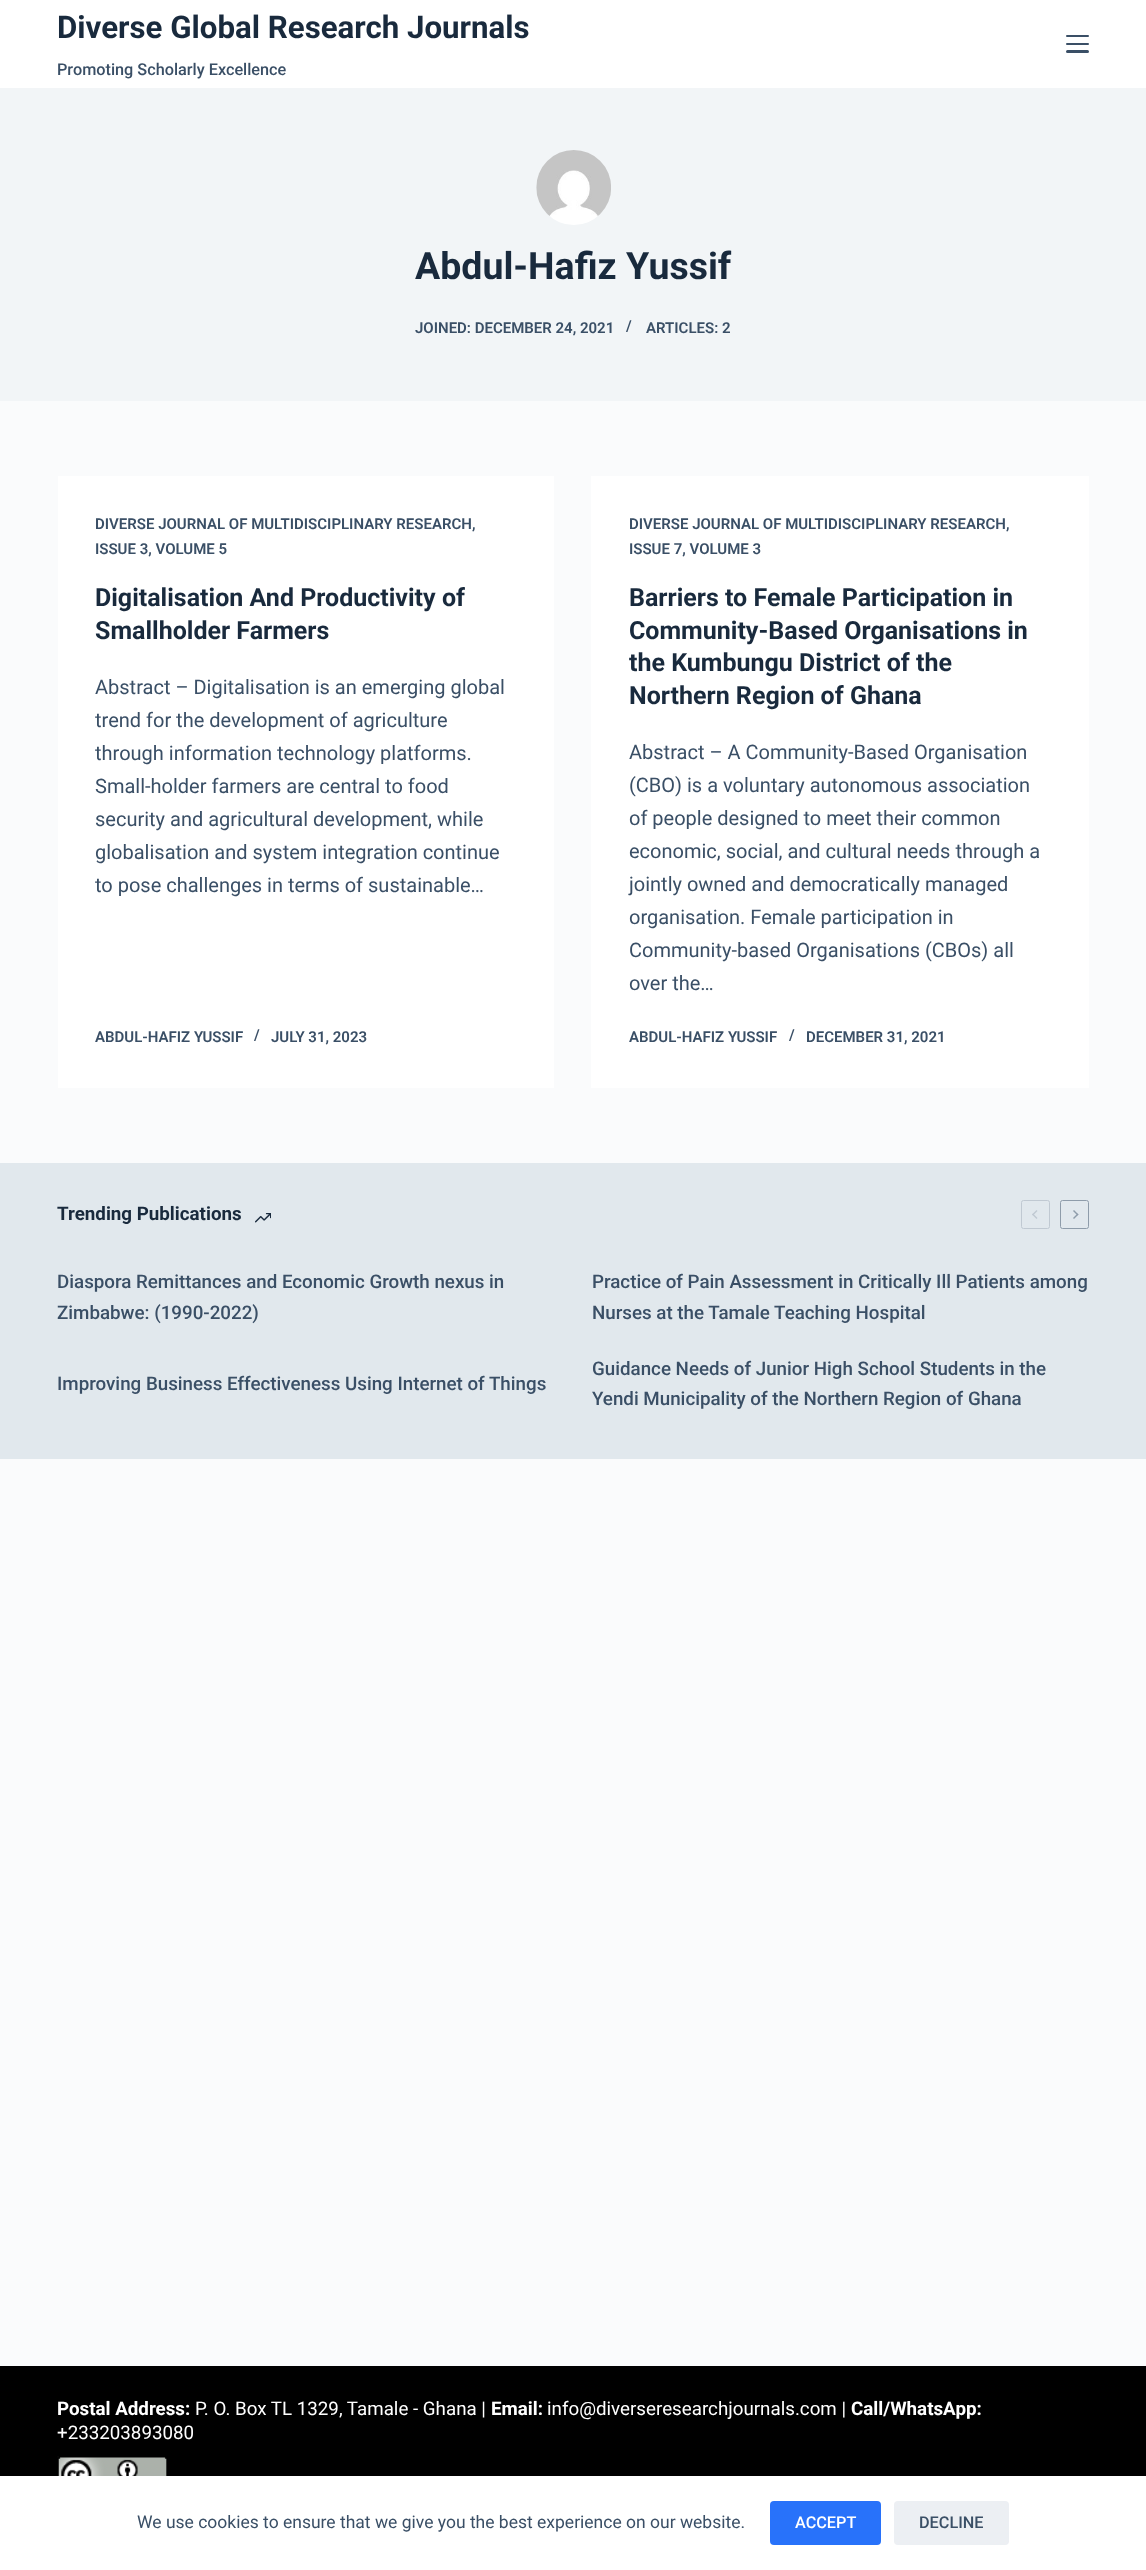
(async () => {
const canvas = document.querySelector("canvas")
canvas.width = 1146
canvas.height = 2570
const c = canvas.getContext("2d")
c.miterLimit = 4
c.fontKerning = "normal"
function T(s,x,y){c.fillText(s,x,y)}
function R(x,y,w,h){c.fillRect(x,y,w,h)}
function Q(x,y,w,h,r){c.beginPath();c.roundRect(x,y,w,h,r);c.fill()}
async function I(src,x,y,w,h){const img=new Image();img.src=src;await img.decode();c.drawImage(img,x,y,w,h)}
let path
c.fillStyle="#fafbfc"
R(0,0,1146,2570)
c.fillStyle="#fff"
R(0,0,1146,88)
c.font="bold 31.25px Roboto"
c.fillStyle="#192a3d"
T("Diverse Global Research Journals",57,38)
c.font="500 16.25px Roboto"
c.fillStyle="#3a4f66"
T("Promoting Scholarly Excellence",57,75)
Q(1066,35,23,2,1)
Q(1066,43,23,2,1)
Q(1066,50,23,3,1.5)
c.fillStyle="#f2f5f7"
R(0,88,1146,313)
await I("1.png",536,150,75,75)
c.font="bold 37.5px Roboto"
c.fillStyle="#192a3d"
T("Abdul-Hafiz Yussif",415,279)
c.font="600 15px Roboto"
c.fillStyle="#3a4f66"
T("JOINED: DECEMBER 24, 2021",415,333)
T("/",626,331)
T("ARTICLES: 2",646,333)
c.fillStyle="#fff"
R(58,476,496,612)
c.fillStyle="#3a4f66"
T("DIVERSE JOURNAL OF MULTIDISCIPLINARY RESEARCH,",95,529)
T("ISSUE 3, VOLUME 5",95,554)
c.font="bold 25px Roboto"
c.fillStyle="#192a3d"
T("Digitalisation And Productivity of",95,606)
T("Smallholder Farmers",95,639)
c.font="20px Roboto"
c.fillStyle="#3a4f66"
T("Abstract – Digitalisation is an emerging global",95,694)
T("trend for the development of agriculture",95,727)
T("through information technology platforms.",95,760)
T("Small-holder farmers are central to food",95,793)
T("security and agricultural development, while",95,826)
T("globalisation and system integration continue",95,859)
T("to pose challenges in terms of sustainable…",95,892)
c.font="600 15px Roboto"
T("ABDUL-HAFIZ YUSSIF",95,1042)
T("/",254,1040)
T("JULY 31, 2023",271,1042)
c.fillStyle="#fff"
R(591,476,498,612)
c.fillStyle="#3a4f66"
T("DIVERSE JOURNAL OF MULTIDISCIPLINARY RESEARCH,",629,529)
T("ISSUE 7, VOLUME 3",629,554)
c.font="bold 25px Roboto"
c.fillStyle="#192a3d"
T("Barriers to Female Participation in",629,606)
T("Community-Based Organisations in",629,639)
T("the Kumbungu District of the",629,671)
T("Northern Region of Ghana",629,704)
c.font="20px Roboto"
c.fillStyle="#3a4f66"
T("Abstract – A Community-Based Organisation",629,759)
T("(CBO) is a voluntary autonomous association",629,792)
T("of people designed to meet their common",629,825)
T("economic, social, and cultural needs through a",629,858)
T("jointly owned and democratically managed",629,891)
T("organisation. Female participation in",629,924)
T("Community-based Organisations (CBOs) all",629,957)
T("over the…",629,990)
c.font="600 15px Roboto"
T("ABDUL-HAFIZ YUSSIF",629,1042)
T("/",789,1040)
T("DECEMBER 31, 2021",806,1042)
c.fillStyle="#e1e8ed"
R(0,1163,1146,296)
c.font="bold 18.75px Roboto"
c.fillStyle="#192a3d"
T("Trending Publications",57,1220)
await I("2.png",255,1213,16,10)
c.beginPath()
c.roundRect(1021.5,1200.5,28,28,2)
c.strokeStyle="#c0c9d2"
c.stroke()
c.fillStyle="#c0c9d2"
path = new Path2D("M1032 1214.5l4.5-4.5l1 1l-4.5 4.5z")
c.fill(path)
path = new Path2D("M1032 1214.5l1-1l4.5 4.5l-1 1z")
c.fill(path)
c.beginPath()
c.roundRect(1060.5,1200.5,28,28,2)
c.strokeStyle="#8e9caa"
c.stroke()
c.fillStyle="#8e9caa"
path = new Path2D("M1078.5 1214.5l-4.5 4.5l-1-1l4.5-4.5z")
c.fill(path)
path = new Path2D("M1078.5 1214.5l-1 1l-4.5-4.5l1-1z")
c.fill(path)
c.font="500 18.75px Roboto"
c.fillStyle="#3a4f66"
T("Diaspora Remittances and Economic Growth nexus in",57,1288)
T("Zimbabwe: (1990-2022)",57,1319)
T("Practice of Pain Assessment in Critically Ill Patients among",592,1288)
T("Nurses at the Tamale Teaching Hospital",592,1319)
T("Improving Business Effectiveness Using Internet of Things",57,1390)
T("Guidance Needs of Junior High School Students in the",592,1375)
T("Yendi Municipality of the Northern Region of Ghana",592,1405)
c.fillStyle="#000"
R(0,2366,1146,110)
c.font="bold 18.75px Roboto"
c.fillStyle="#fff"
T("Postal Address:",57,2415)
c.font="18.75px Roboto"
T("P. O. Box TL 1329, Tamale - Ghana |",195,2415)
c.font="bold 18.75px Roboto"
T("Email:",491,2415)
c.font="18.75px Roboto"
T("info@diverseresearchjournals.com |",547,2415)
c.font="bold 18.75px Roboto"
T("Call/WhatsApp:",851,2415)
c.font="18.75px Roboto"
T("+233203893080",57,2439)
await I("3.png",57,2456,110,20)
R(0,2476,1146,94)
c.font="17.5px Roboto"
c.fillStyle="#3a4f66"
T("We use cookies to ensure that we give you the best experience on our website.",137,2528)
c.fillStyle="#2872fa"
Q(770,2501,111,44,4)
c.font="500 16.25px Roboto"
c.fillStyle="#fff"
T("ACCEPT",795,2528)
c.fillStyle="#eceff3"
Q(894,2501,115,44,4)
c.fillStyle="#3a4f66"
T("DECLINE",919,2528)
})()
